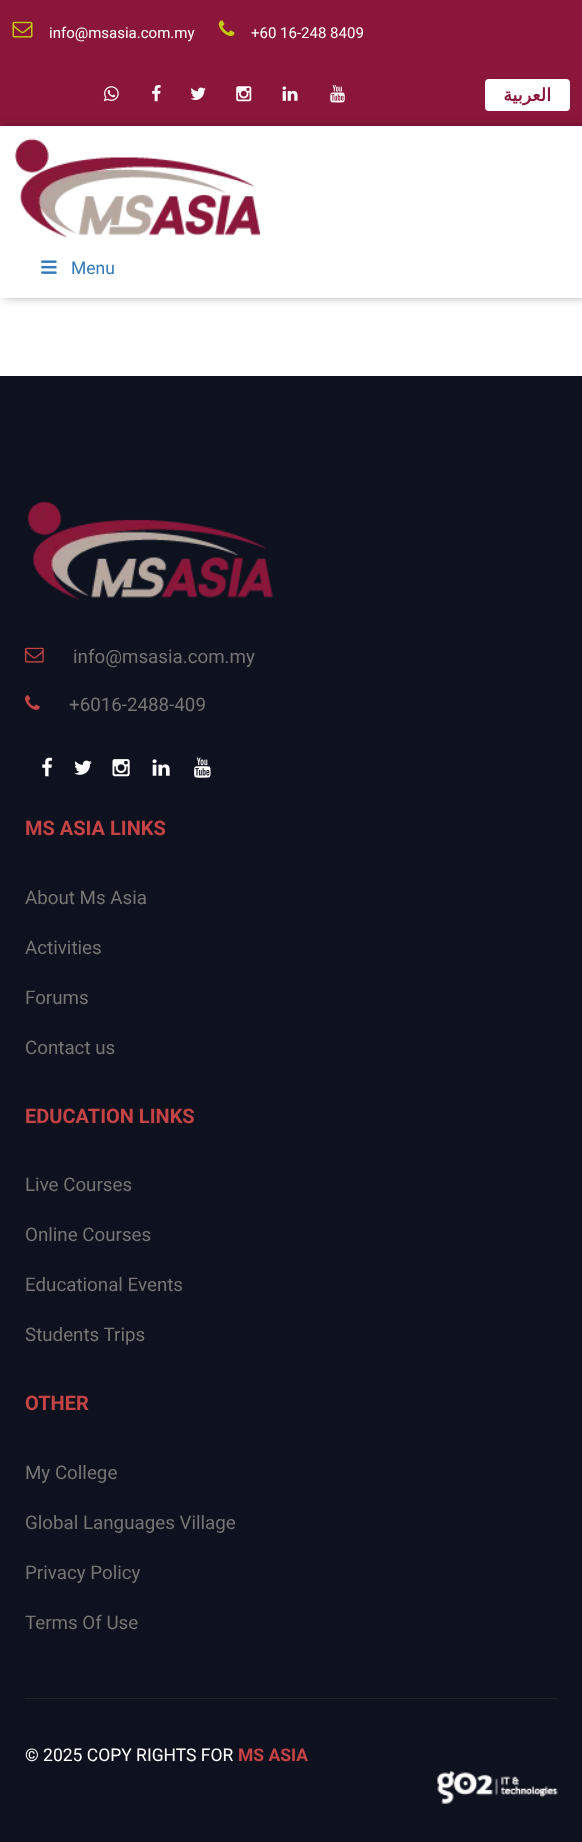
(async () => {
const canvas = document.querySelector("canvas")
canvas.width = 582
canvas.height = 1842
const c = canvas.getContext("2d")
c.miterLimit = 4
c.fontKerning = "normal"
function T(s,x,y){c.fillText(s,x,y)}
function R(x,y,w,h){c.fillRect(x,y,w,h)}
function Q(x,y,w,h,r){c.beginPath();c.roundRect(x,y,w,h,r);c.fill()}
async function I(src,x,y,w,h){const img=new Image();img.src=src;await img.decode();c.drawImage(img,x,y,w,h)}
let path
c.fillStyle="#fff"
R(0,0,582,1842)
c.fillStyle="#8a1739"
R(0,0,582,126)
await I("1.png",12,21,21,17)
c.font="15px Roboto"
c.fillStyle="#fff"
T("info@msasia.com.my",49,38)
await I("2.png",218,20,17,17)
T("+60 16-248 8409",251,38)
await I("3.png",103,86,16,16)
await I("4.png",152,85,9,17)
await I("5.png",190,87,16,13)
await I("6.png",236,86,16,16)
await I("7.png",282,86,16,15)
await I("8.png",330,85,15,18)
Q(485,79,85,32,4)
c.direction="rtl"
c.font="bold 17.5px DejaVu Sans"
c.fillStyle="#8a1739"
T("العربية",551,101)
c.save()
path = new Path2D("M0 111h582v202h-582zm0 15h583v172h-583z")
c.clip(path,"evenodd")
c.fillStyle="#0000004d"
c.filter="blur(4.5px)"
c.beginPath()
c.rect(4,126,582,172)
c.fill()
c.filter="none"
c.restore()
await I("9.png",14,138,247,100)
await I("10.png",41,260,16,14)
c.direction="ltr"
c.font="17.5px Roboto"
c.fillStyle="#337ab7"
T("Menu",71,274)
c.fillStyle="#0e121f"
R(0,376,582,1466)
await I("11.png",27,501,246,99)
await I("12.png",25,647,19,16)
c.font="18.75px Roboto"
c.fillStyle="#757575"
T("info@msasia.com.my",73,663)
await I("13.png",25,695,15,15)
T("+6016-2488-409",69,711)
await I("14.png",42,757,10,20)
await I("15.png",74,760,18,15)
await I("16.png",112,759,18,18)
await I("17.png",152,759,18,17)
await I("18.png",194,757,17,21)
c.font="bold 20px Roboto"
c.fillStyle="#c54345"
T("MS ASIA LINKS",25,835)
c.font="18.75px Roboto"
c.fillStyle="#757575"
T("About Ms Asia",25,904)
T("Activities",25,954)
T("Forums",25,1004)
T("Contact us",25,1054)
c.font="bold 20px Roboto"
c.fillStyle="#c54345"
T("EDUCATION LINKS",25,1123)
c.font="18.75px Roboto"
c.fillStyle="#757575"
T("Live Courses",25,1191)
T("Online Courses",25,1241)
T("Educational Events",25,1291)
T("Students Trips",25,1341)
c.font="bold 20px Roboto"
c.fillStyle="#c54345"
T("OTHER",25,1410)
c.font="18.75px Roboto"
c.fillStyle="#757575"
T("My College",25,1479)
T("Global Languages Village",25,1529)
T("Privacy Policy",25,1579)
T("Terms Of Use",25,1629)
c.fillStyle="#222"
R(25,1698,533,1)
c.font="17.5px Roboto"
c.fillStyle="#fff"
T("© 2025 COPY RIGHTS FOR",25,1761)
c.font="bold 17.5px Roboto"
c.fillStyle="#c54345"
T("MS ASIA",238,1761)
await I("19.png",437,1771,121,33)
})()
